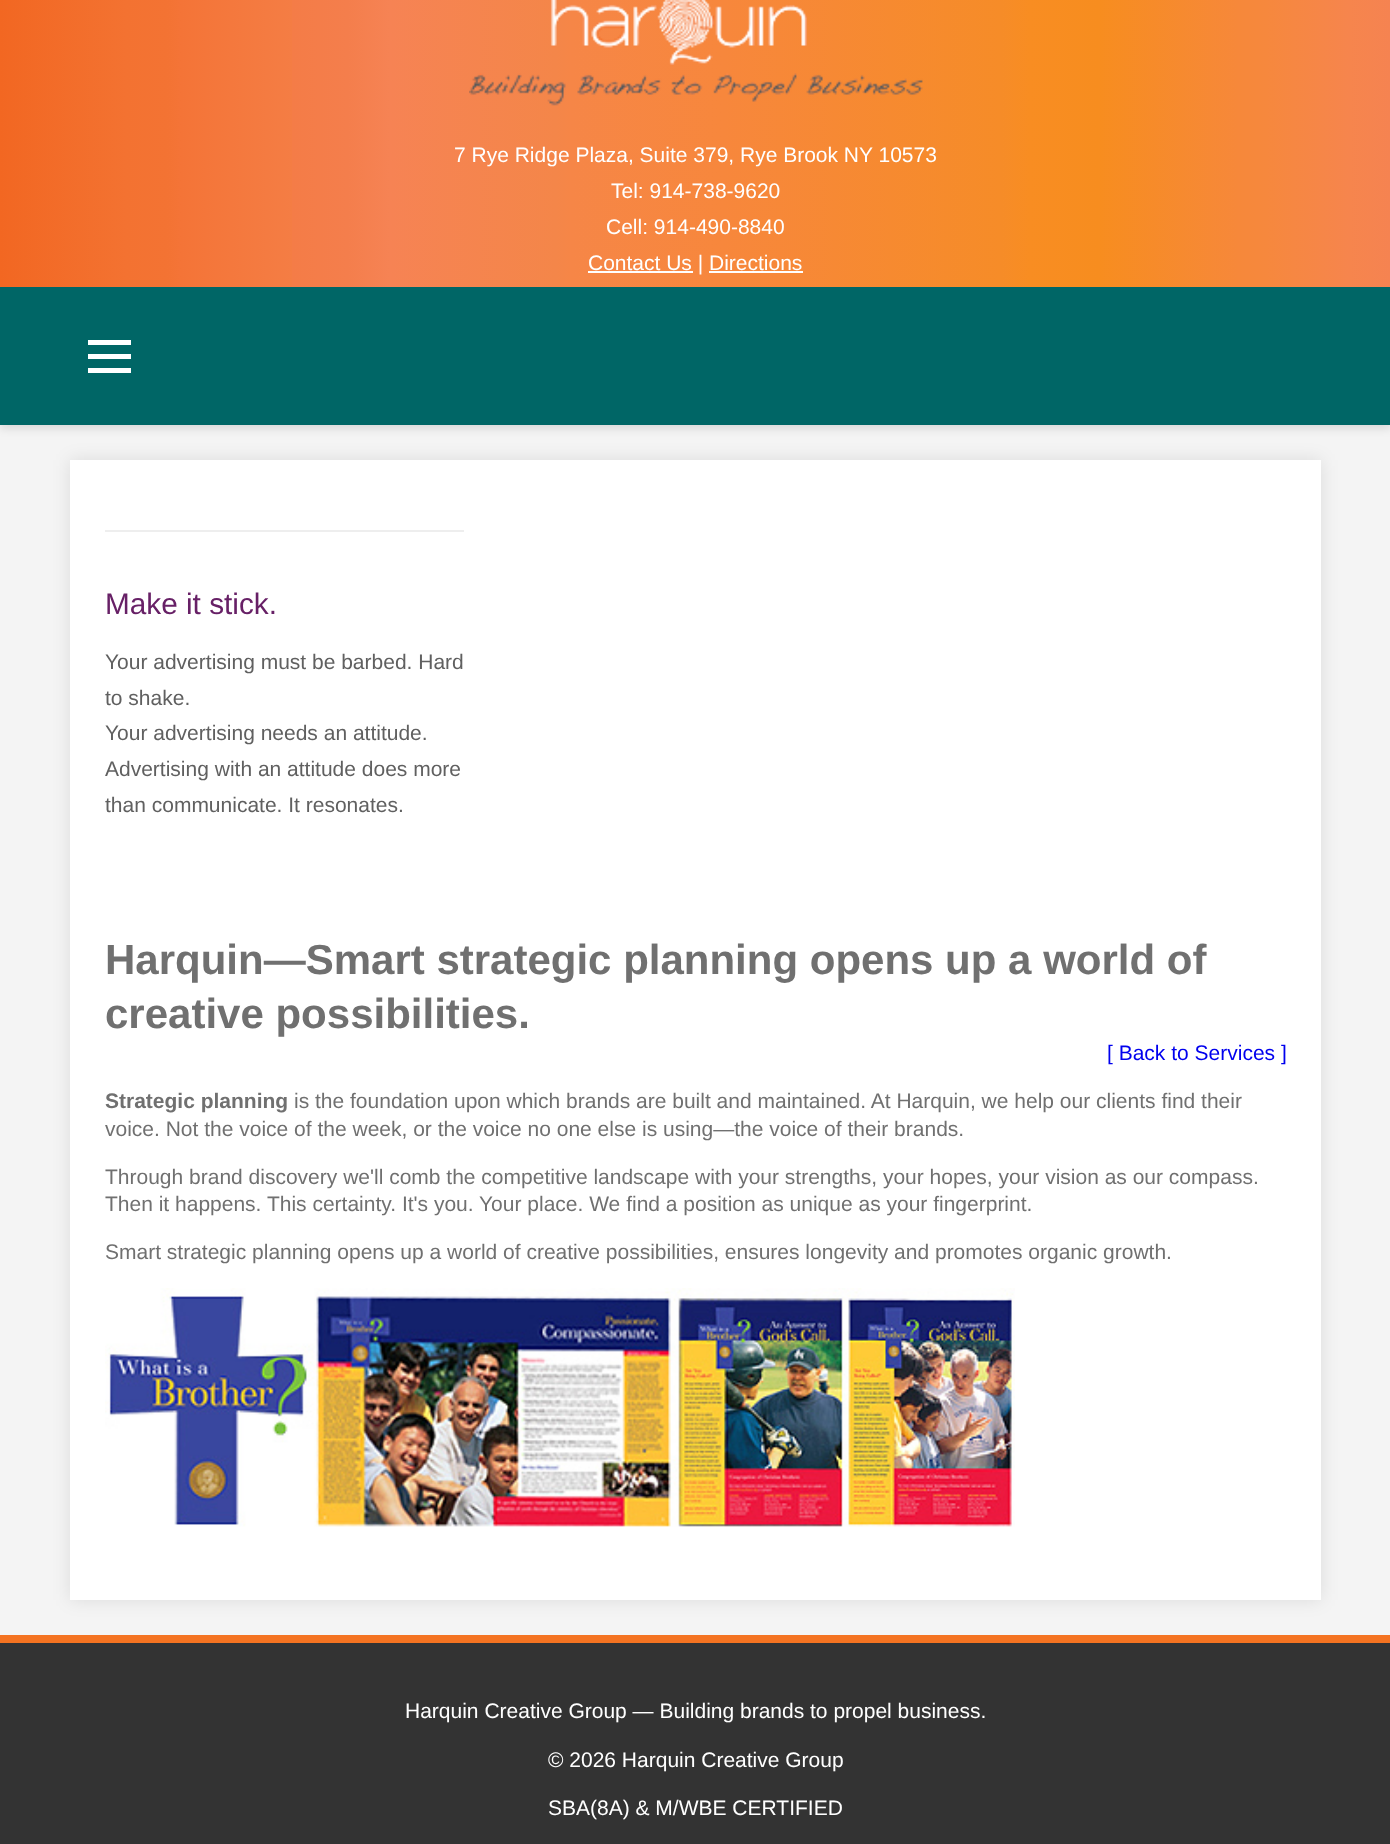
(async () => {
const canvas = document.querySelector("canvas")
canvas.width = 1390
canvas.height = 1844
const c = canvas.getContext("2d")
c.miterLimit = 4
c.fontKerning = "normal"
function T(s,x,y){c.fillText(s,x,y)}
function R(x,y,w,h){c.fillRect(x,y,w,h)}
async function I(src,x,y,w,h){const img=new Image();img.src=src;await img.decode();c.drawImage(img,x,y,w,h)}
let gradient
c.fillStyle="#f4f4f4"
R(0,0,1390,1844)
c.fillStyle="#0000001a"
c.filter="blur(4.5px)"
c.beginPath()
c.rect(0,-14,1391,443)
c.fill()
c.filter="none"
gradient = c.createLinearGradient(0,188,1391,188)
gradient.addColorStop(0,"#f26722")
gradient.addColorStop(.09,"#f37231")
gradient.addColorStop(.12,"#f37333")
gradient.addColorStop(.13,"#f47437")
gradient.addColorStop(.21,"#f47d44")
gradient.addColorStop(.21,"#f47c47")
gradient.addColorStop(.25,"#f47e4c")
gradient.addColorStop(.28,"#f68354")
gradient.addColorStop(.4,"#f48649")
gradient.addColorStop(.41,"#f68647")
gradient.addColorStop(.52,"#f7873c")
gradient.addColorStop(.72,"#f68c28")
gradient.addColorStop(.74,"#f88d22")
gradient.addColorStop(.79,"#f78d1f")
gradient.addColorStop(.89,"#f6883a")
gradient.addColorStop(.91,"#f6883d")
gradient.addColorStop(.97,"#f6854d")
gradient.addColorStop(1,"#f58351")
gradient.addColorStop(1,"#f68252")
gradient.addColorStop(1,"#f6895c")
c.fillStyle = gradient
R(0,0,1390,287)
await I("1.png",550,0,257,65)
await I("2.png",469,73,454,33)
c.font="21px Liberation Sans"
c.fillStyle="#fff"
T("7 Rye Ridge Plaza, Suite 379, Rye Brook NY 10573",454,162)
T("Tel: 914-738-9620",611,198)
T("Cell: 914-490-8840",606,234)
R(588,271,105,2)
T("Contact Us | Directions",588,270)
R(709,271,94,2)
c.fillStyle="#066"
R(0,287,1390,138)
c.fillStyle="#fff"
R(88,340,43,5)
R(88,354,43,5)
R(88,368,43,5)
c.fillStyle="#0000001a"
c.filter="blur(9px)"
c.beginPath()
c.rect(70,460,1251,1140)
c.fill()
c.filter="none"
c.fillStyle="#fff"
R(70,460,1251,1140)
c.fillStyle="#eee"
R(105,530,359,2)
c.font="29.75px Liberation Sans"
c.fillStyle="#672066"
T("Make it stick.",105,614)
c.font="21px Liberation Sans"
c.fillStyle="#606060"
T("Your advertising must be barbed. Hard",105,669)
T("to shake.",105,705)
T("Your advertising needs an attitude.",105,740)
T("Advertising with an attitude does more",105,776)
T("than communicate. It resonates.",105,812)
c.font="bold 42px Liberation Sans"
c.fillStyle="#707070"
T("Harquin—Smart strategic planning opens up a world of",105,974)
T("creative possibilities.",105,1028)
c.font="21px Liberation Sans"
c.fillStyle="#00e"
T("[ Back to Services ]",1107,1060)
c.font="bold 21px Liberation Sans"
c.fillStyle="#707070"
T("Strategic planning",105,1108)
c.font="21px Liberation Sans"
T("is the foundation upon which brands are built and maintained. At Harquin, we help our clients find their",294,1108)
T("voice. Not the voice of the week, or the voice no one else is using—the voice of their brands.",105,1136)
T("Through brand discovery we'll comb the competitive landscape with your strengths, your hopes, your vision as our compass.",105,1184)
T("Then it happens. This certainty. It's you. Your place. We find a position as unique as your fingerprint.",105,1211)
T("Smart strategic planning opens up a world of creative possibilities, ensures longevity and promotes organic growth.",105,1259)
await I("3.png",105,1288,910,239)
c.fillStyle="#333"
R(0,1643,1390,201)
c.fillStyle="#f47321"
R(0,1635,1390,8)
c.fillStyle="#fff"
T("Harquin Creative Group — Building brands to propel business.",405,1718)
T("© 2026 Harquin Creative Group",548,1767)
T("SBA(8A) & M/WBE CERTIFIED",548,1815)
})()
